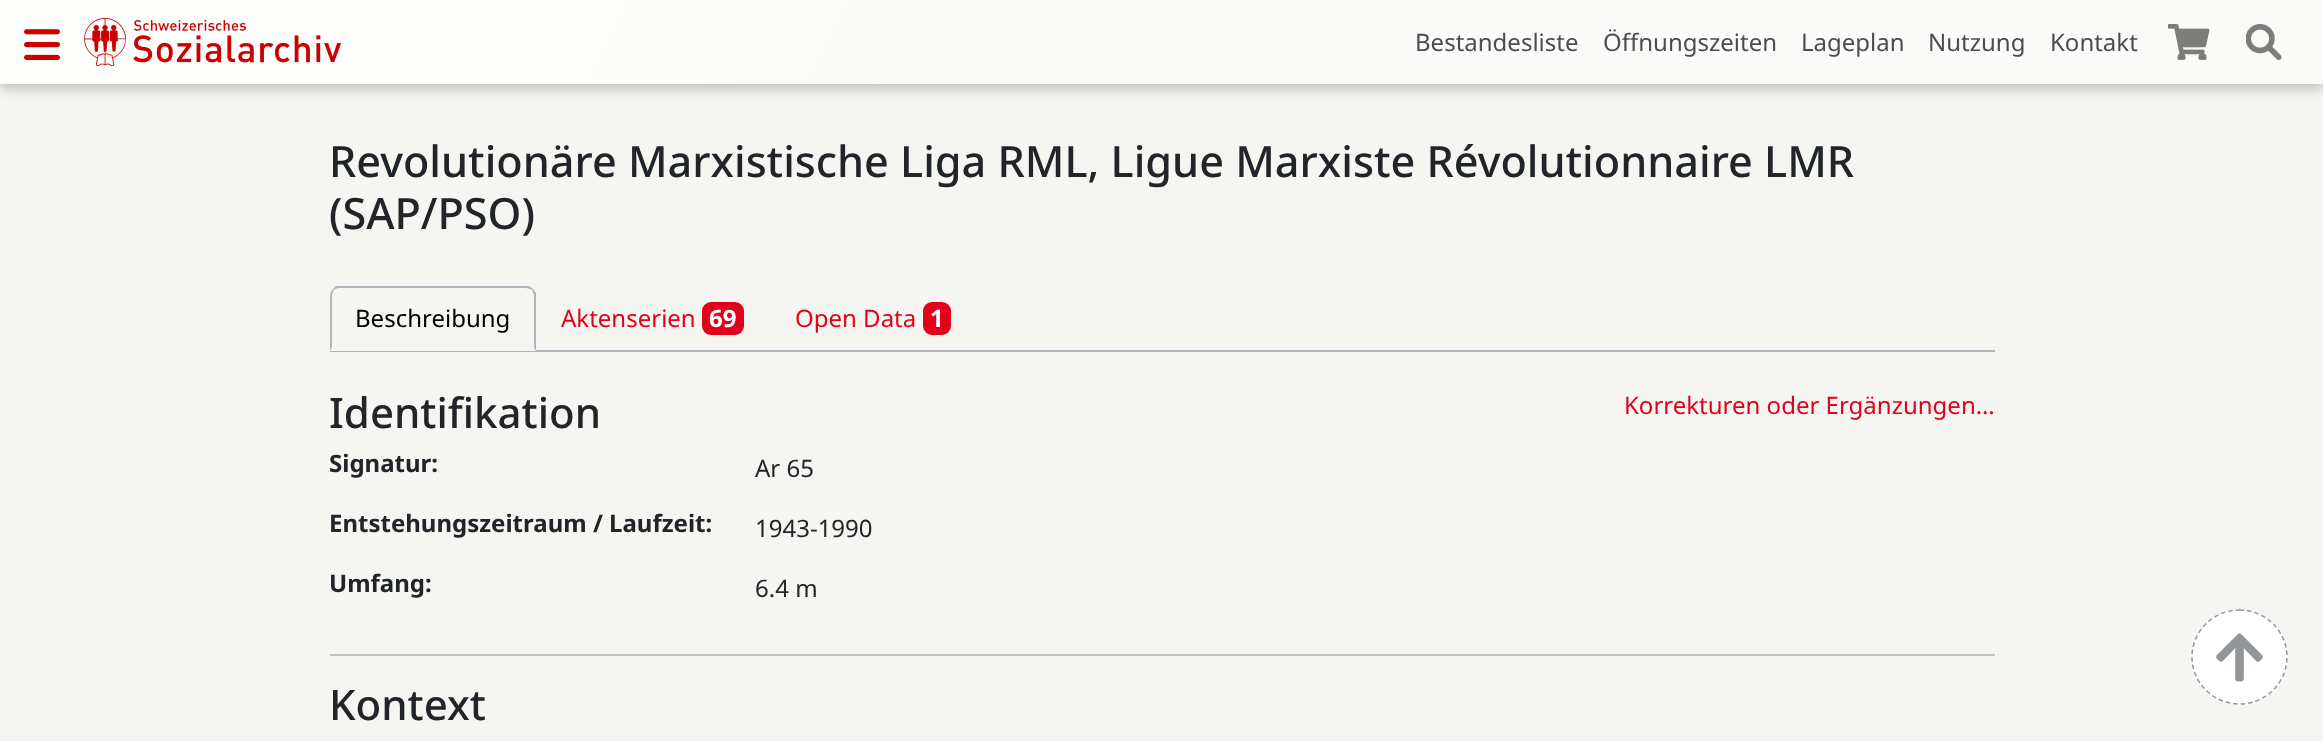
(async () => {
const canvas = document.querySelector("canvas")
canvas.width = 2323
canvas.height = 741
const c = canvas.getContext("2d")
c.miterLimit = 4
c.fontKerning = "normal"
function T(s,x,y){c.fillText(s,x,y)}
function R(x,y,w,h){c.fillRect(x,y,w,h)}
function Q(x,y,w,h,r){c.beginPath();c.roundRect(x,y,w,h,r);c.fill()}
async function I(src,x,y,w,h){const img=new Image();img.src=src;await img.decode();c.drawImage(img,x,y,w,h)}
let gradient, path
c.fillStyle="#f5f5f2"
R(0,0,2323,741)
c.fillStyle="#00000014"
c.filter="blur(6px)"
c.beginPath()
c.rect(0,0,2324,84)
c.fill()
c.filter="none"
c.fillStyle="#00000029"
c.filter="blur(6px)"
c.beginPath()
c.rect(0,6,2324,84)
c.fill()
c.filter="none"
gradient = c.createLinearGradient(222,-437,2101,521)
gradient.addColorStop(0,"#fefefd")
gradient.addColorStop(.2,"#fefefd")
gradient.addColorStop(.4,"#fafaf8")
gradient.addColorStop(1,"#fafaf8")
c.fillStyle = gradient
R(0,0,2323,84)
await I("1.png",24,29,36,31)
await I("2.png",84,18,258,48)
c.font="24px Noto Sans"
c.fillStyle="#4d4d4d"
T("Bestandesliste",1415,51)
T("Öffnungszeiten",1603,51)
T("Lageplan",1801,51)
T("Nutzung",1928,51)
T("Kontakt",2050,51)
await I("3.png",2168,24,42,36)
await I("4.png",2246,24,36,36)
c.font="500 43.2px Noto Sans"
c.fillStyle="#212529"
T("Revolutionäre Marxistische Liga RML, Ligue Marxiste Révolutionnaire LMR",329,177)
T("(SAP/PSO)",329,229)
c.fillStyle="#adb5bd"
R(330,350,1665,2)
path = new Path2D("M339 288c-2 0-4 1-5 2l-1-1l3-3h193l4 3l-1 1c-2-1-4-2-6-2z")
c.fill(path)
path = new Path2D("M536 293v58l-2-3v-52c0-2-1-4-2-6l1-1z")
c.fill(path)
c.fillStyle="#f5f5f2"
path = new Path2D("M536 351l-2-3h-202v-1l-2 4z")
c.fill(path)
c.fillStyle="#adb5bd"
path = new Path2D("M330 351l2-4v-51c0-2 1-4 2-6l-1-1c-2 2-3 5-3 7z")
c.fill(path)
c.font="24px Noto Sans"
c.fillStyle="#000"
T("Beschreibung",355,327)
c.fillStyle="#e2001a"
T("Aktenserien",561,327)
Q(702,302,42,33,9)
c.font="bold 24px Noto Sans"
c.fillStyle="#fff"
T("69",709,327)
c.font="24px Noto Sans"
c.fillStyle="#e2001a"
T("Open Data",795,327)
Q(923,302,28,33,9)
c.font="bold 24px Noto Sans"
c.fillStyle="#fff"
T("1",930,327)
c.font="500 42px Noto Sans"
c.fillStyle="#212529"
T("Identifikation",329,428)
c.font="24px Noto Sans"
c.fillStyle="#e2001a"
T("Korrekturen oder Ergänzungen…",1624,414)
c.font="bold 24px Noto Sans"
c.fillStyle="#212529"
T("Signatur:",329,472)
c.font="24px Noto Sans"
T("Ar 65",755,477)
c.font="bold 24px Noto Sans"
T("Entstehungszeitraum / Laufzeit:",329,532)
c.font="24px Noto Sans"
T("1943-1990",755,537)
c.font="bold 24px Noto Sans"
T("Umfang:",329,592)
c.font="24px Noto Sans"
T("6.4 m",755,597)
c.fillStyle="#c0c1c0"
R(330,654,1665,2)
c.font="500 42px Noto Sans"
c.fillStyle="#212529"
T("Kontext",329,720)
c.fillStyle="#fff"
c.beginPath()
c.arc(2240,657,48,0,7)
c.fill()
await I("5.png",2216,633,47,49)
path = new Path2D("M2239.5 610c26 0 47.5 21 47.5 47c0 26-21.5 47-47.5 47c-26 0-47.5-21-47.5-47c0-26 21.5-47 47.5-47z")
c.strokeStyle="#92969c"
c.lineWidth=1.5
c.setLineDash([4.5,3])
c.stroke(path)
})()
